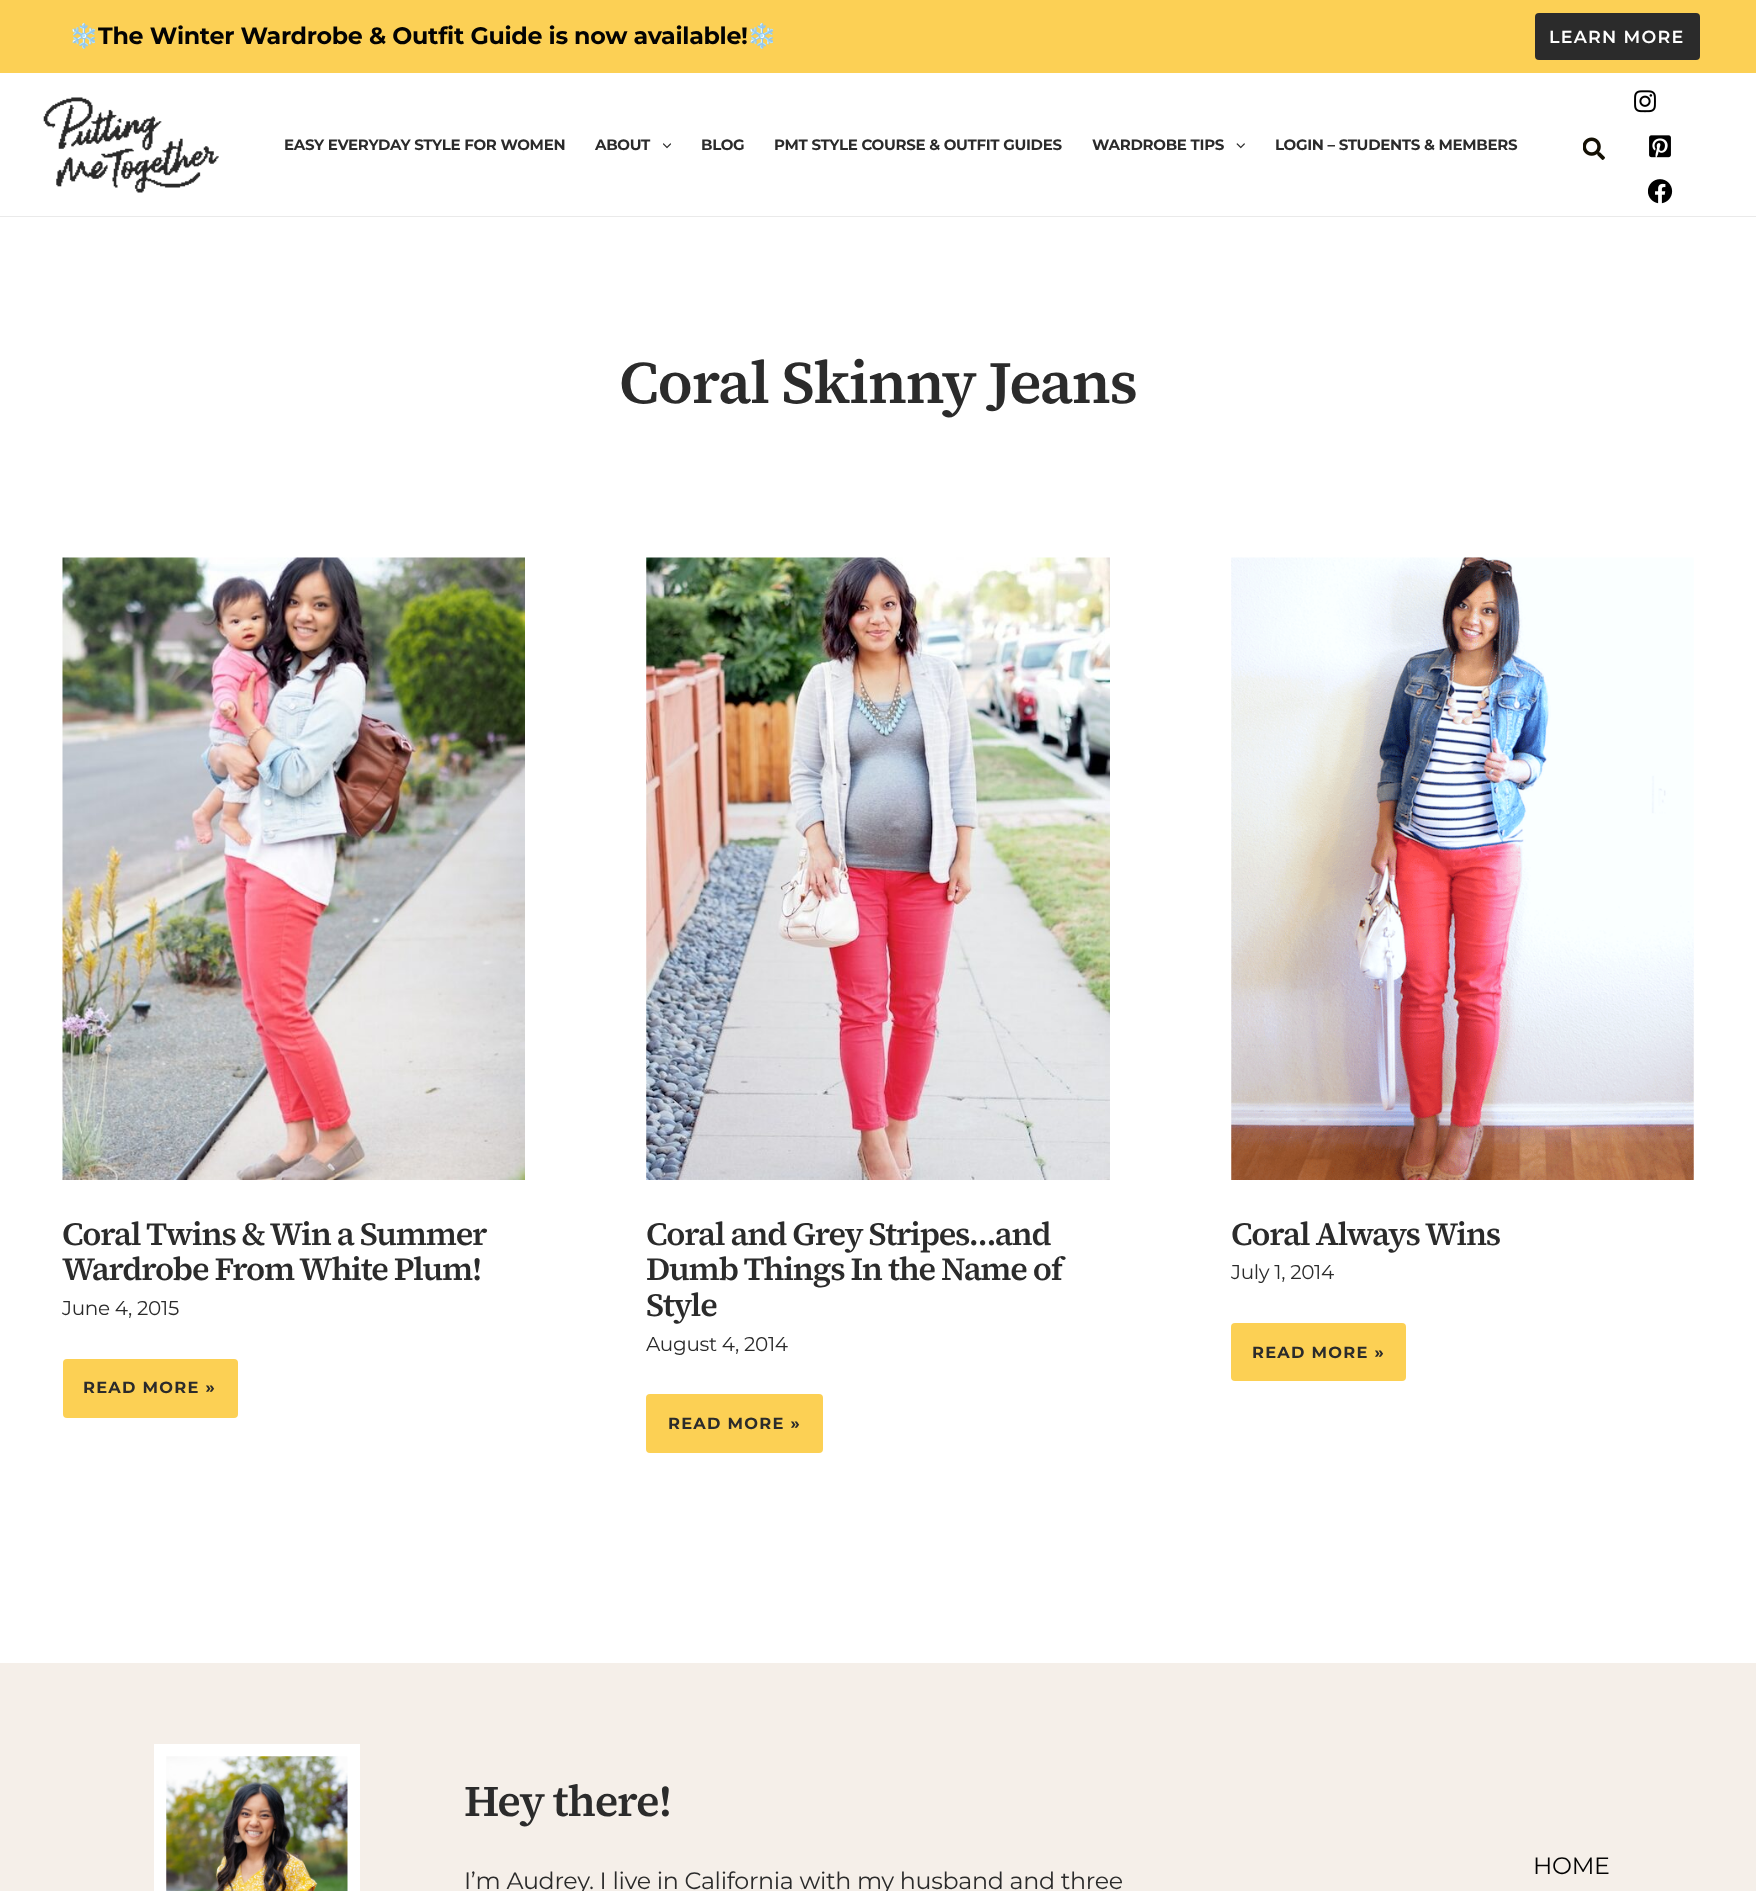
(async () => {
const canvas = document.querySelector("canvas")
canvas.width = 1756
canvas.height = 1891
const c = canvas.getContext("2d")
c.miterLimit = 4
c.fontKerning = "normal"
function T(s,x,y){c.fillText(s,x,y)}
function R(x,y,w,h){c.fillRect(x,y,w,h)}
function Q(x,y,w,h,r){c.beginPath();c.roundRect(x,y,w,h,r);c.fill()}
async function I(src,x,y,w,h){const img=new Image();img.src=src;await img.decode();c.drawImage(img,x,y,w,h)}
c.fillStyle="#fff"
R(0,0,1756,1891)
c.fillStyle="#fcd055"
R(0,0,1756,73)
c.letterSpacing="-0.3px"
c.font="bold 23.75px Noto Color Emoji"
c.fillStyle="#030303"
T("❄️",69,44)
c.font="bold 23.75px Montserrat"
T("The Winter Wardrobe & Outfit Guide is now available!",98,44)
c.font="bold 23.75px Noto Color Emoji"
T("❄️",747,44)
c.fillStyle="#2b2b2b"
Q(1535,13,165,47,4)
c.letterSpacing="1.25px"
c.font="600 17.5px Montserrat"
c.fillStyle="#fff"
T("LEARN MORE",1549,43)
c.fillStyle="#eaeaea"
R(0,216,1756,1)
await I("1.png",43,97,176,96)
c.letterSpacing="-0.3px"
c.font="bold 15px Montserrat"
c.fillStyle="#2b2b2b"
T("EASY EVERYDAY STYLE FOR WOMEN",284,150)
T("ABOUT",595,150)
await I("2.png",663,143,8,6)
T("BLOG",701,150)
T("PMT STYLE COURSE & OUTFIT GUIDES",774,150)
T("WARDROBE TIPS",1092,150)
await I("3.png",1236,143,9,6)
T("LOGIN – STUDENTS & MEMBERS",1275,150)
await I("4.png",1583,137,22,23)
await I("5.png",1634,90,22,23)
await I("6.png",1649,135,22,23)
await I("7.png",1648,179,25,25)
c.letterSpacing="-1.25px"
c.font="600 60px 'Source Serif 4'"
T("Coral Skinny Jeans",619,403)
await I("8.png",62,557,463,623)
c.font="600 32.5px 'Source Serif 4'"
T("Coral Twins & Win a Summer",62,1245)
T("Wardrobe From White Plum!",62,1280)
c.letterSpacing="-0.3px"
c.font="20px Montserrat"
T("June 4, 2015",62,1315)
c.fillStyle="#fcd054"
Q(63,1359,175,59,4)
c.letterSpacing="1.25px"
c.font="bold 16.25px Montserrat"
c.fillStyle="#2b2b2b"
T("READ MORE »",83,1393)
await I("9.png",646,557,464,623)
c.letterSpacing="-1.25px"
c.font="600 32.5px 'Source Serif 4'"
T("Coral and Grey Stripes…and",646,1245)
T("Dumb Things In the Name of",646,1280)
T("Style",646,1316)
c.letterSpacing="-0.3px"
c.font="20px Montserrat"
T("August 4, 2014",646,1351)
c.fillStyle="#fcd054"
Q(646,1394,177,59,4)
c.letterSpacing="1.25px"
c.font="bold 16.25px Montserrat"
c.fillStyle="#2b2b2b"
T("READ MORE »",668,1429)
await I("10.png",1231,557,463,623)
c.letterSpacing="-1.25px"
c.font="600 32.5px 'Source Serif 4'"
T("Coral Always Wins",1231,1245)
c.letterSpacing="-0.3px"
c.font="20px Montserrat"
T("July 1, 2014",1231,1279)
c.fillStyle="#fcd054"
Q(1231,1323,175,58,4)
c.letterSpacing="1.25px"
c.font="bold 16.25px Montserrat"
c.fillStyle="#2b2b2b"
T("READ MORE »",1252,1358)
c.fillStyle="#f5efe9"
R(0,1663,1756,228)
c.strokeStyle="#fff"
c.lineWidth=13
c.strokeRect(160.5,1750.5,193,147)
await I("11.png",166,1756,182,135)
c.letterSpacing="-1.25px"
c.font="600 43.75px 'Source Serif 4'"
c.fillStyle="#2b2b2b"
T("Hey there!",464,1816)
c.letterSpacing="-0.3px"
c.font="23.75px Montserrat"
T("I’m Audrey. I live in California with my husband and three",464,1889)
c.fillStyle="#030303"
T("HOME",1533,1874)
})()
